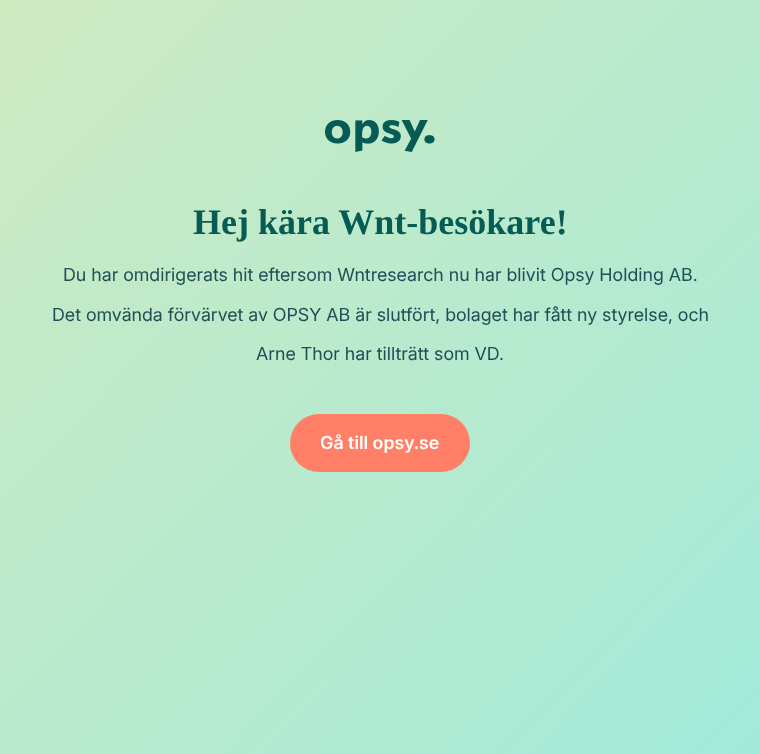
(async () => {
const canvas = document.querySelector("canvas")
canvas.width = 760
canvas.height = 754
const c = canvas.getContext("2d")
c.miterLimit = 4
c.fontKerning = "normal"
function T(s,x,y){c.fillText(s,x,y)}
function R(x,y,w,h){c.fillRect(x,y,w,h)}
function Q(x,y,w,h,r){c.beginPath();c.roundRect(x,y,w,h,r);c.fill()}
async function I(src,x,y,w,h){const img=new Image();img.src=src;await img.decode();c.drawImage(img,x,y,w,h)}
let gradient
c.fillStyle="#fff"
R(0,0,760,754)
gradient = c.createLinearGradient(-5,5.2,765,749)
gradient.addColorStop(0,"#ceeac1")
gradient.addColorStop(1,"#a3eada")
c.fillStyle = gradient
R(0,0,760,754)
await I("1.png",325,120,110,32)
c.font="bold 36px Liberation Serif"
c.fillStyle="#065b55"
T("Hej kära Wnt-besökare!",193,234)
c.font="18px Inter"
c.fillStyle="#204f58"
T("Du har omdirigerats hit eftersom Wntresearch nu har blivit Opsy Holding AB.",63,281)
T("Det omvända förvärvet av OPSY AB är slutfört, bolaget har fått ny styrelse, och",52,321)
T("Arne Thor har tillträtt som VD.",256,360)
c.fillStyle="#ff8066"
Q(290,414,180,58,29)
c.font="600 18px Inter"
c.fillStyle="#fff"
T("Gå till opsy.se",320,449)
})()
